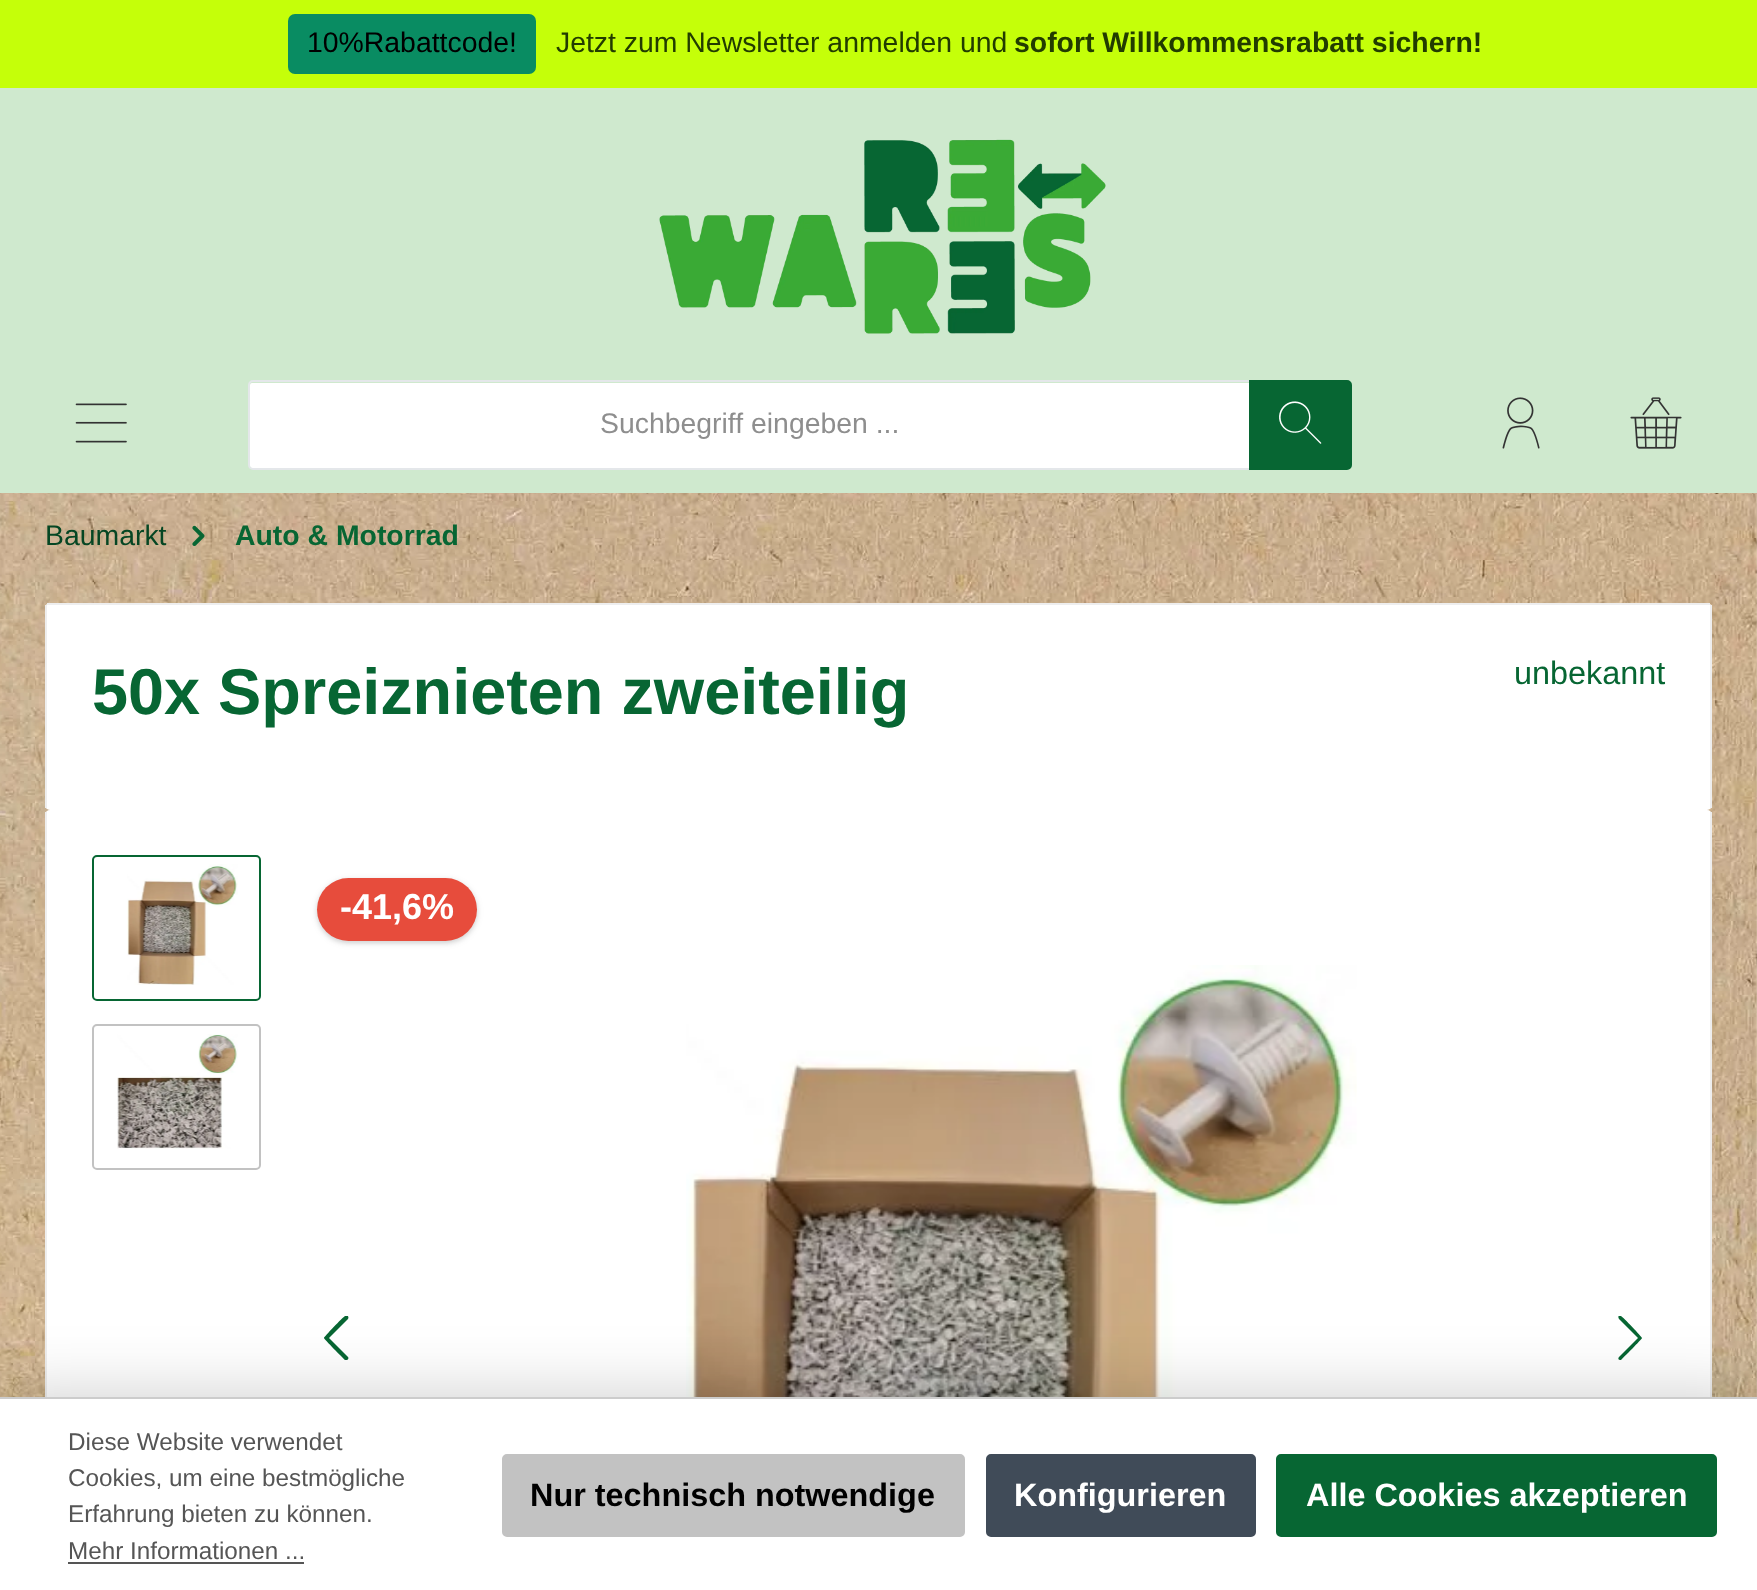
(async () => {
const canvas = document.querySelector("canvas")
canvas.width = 1757
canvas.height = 1590
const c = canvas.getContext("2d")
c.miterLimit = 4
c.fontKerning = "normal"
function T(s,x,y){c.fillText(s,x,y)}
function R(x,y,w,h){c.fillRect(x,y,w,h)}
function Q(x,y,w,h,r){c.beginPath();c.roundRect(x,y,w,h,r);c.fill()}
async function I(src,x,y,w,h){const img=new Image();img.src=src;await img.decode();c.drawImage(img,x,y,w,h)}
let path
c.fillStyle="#fff"
R(0,0,1757,1590)
await I("1.png",0,493,1757,904)
c.fillStyle="#c5ff09"
R(0,0,1757,88)
c.fillStyle="#098c62"
Q(288,14,248,60,7)
c.font="28.4px Liberation Sans"
c.fillStyle="#000"
T("10%Rabattcode!",307,52)
c.fillStyle="#223c00"
T("Jetzt zum Newsletter anmelden und",556,52)
c.font="bold 28.4px Liberation Sans"
T("sofort Willkommensrabatt sichern!",1014,52)
c.fillStyle="#cfe9ce"
R(0,88,1757,405)
await I("2.png",659,139,447,195)
await I("3.png",75,403,52,40)
c.fillStyle="#fff"
c.beginPath()
c.roundRect(250,383,999,85,[2,0,0,2])
c.fill()
c.beginPath()
c.roundRect(249,381,1001,88,[4,0,0,4])
c.strokeStyle="#e4e7ea"
c.lineWidth=2
c.stroke()
c.font="28.4px Liberation Sans"
c.fillStyle="#8e8e8e"
T("Suchbegriff eingeben ...",600,433)
c.fillStyle="#076633"
c.beginPath()
c.roundRect(1250,381,101,88,[0,4,4,0])
c.fill()
c.strokeStyle="#076633"
c.stroke()
await I("4.png",1279,401,43,43)
await I("5.png",1502,397,38,52)
await I("6.png",1630,397,52,52)
c.fillStyle="#054623"
T("Baumarkt",45,545)
await I("7.png",192,525,13,21)
c.font="bold 28.4px Liberation Sans"
c.fillStyle="#076633"
T("Auto & Motorrad",235,545)
c.fillStyle="#fff"
Q(45,603,1667,207,5)
c.fillStyle="#eee"
R(47,603,1663,2)
R(1710,605,2,203)
R(45,605,2,203)
c.font="bold 64.8px Liberation Sans"
c.fillStyle="#076633"
T("50x Spreiznieten zweiteilig",92,714)
c.font="32.4px Liberation Sans"
T("unbekannt",1514,684)
c.fillStyle="#fff"
Q(45,810,1667,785,5)
c.fillStyle="#eee"
R(1710,812,2,585)
R(45,812,2,585)
c.beginPath()
c.roundRect(93,856,167,144,4)
c.stroke()
await I("8.png",127,864,111,121)
c.beginPath()
c.roundRect(93,1025,167,144,4)
c.strokeStyle="#c2c2c2"
c.stroke()
await I("9.png",117,1034,121,115)
c.fillStyle="#0000001a"
c.filter="blur(2px)"
c.beginPath()
c.roundRect(317,880,160,63,31.5)
c.fill()
c.filter="none"
c.filter="blur(3.5px)"
c.beginPath()
c.roundRect(317,880,160,63,31.5)
c.fill()
c.filter="none"
c.fillStyle="#e74c3c"
Q(317,878,160,63,31.5)
c.font="bold 36px Liberation Sans"
c.fillStyle="#fff"
T("-41,6%",340,919)
await I("10.png",686,965,671,432)
c.save()
c.beginPath()
c.rect(313,1316,45,45)
c.clip()
c.fillStyle="#076633"
path = new Path2D("M329 1338l19 19c1 1 0 3-1 3h-2c-2-2-21-21-21-22c0-1 19-21 21-22l2-1c1 1 2 2 1 4z")
c.fill(path,"evenodd")
c.restore()
c.save()
c.beginPath()
c.rect(1609,1316,45,45)
c.clip()
c.fillStyle="#076633"
path = new Path2D("M1638 1338l-19 19c-1 1-1 3 1 3h1c2-2 21-21 21-22c0-1-19-21-21-22l-1-1c-2 1-2 2-1 4z")
c.fill(path,"evenodd")
c.restore()
c.fillStyle="#00000033"
c.filter="blur(34px)"
c.beginPath()
c.rect(0,1397,1757,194)
c.fill()
c.filter="none"
c.fillStyle="#fff"
R(0,1399,1757,191)
c.fillStyle="#ccc"
R(0,1397,1757,2)
c.font="24.25px Liberation Sans"
c.fillStyle="#555"
T("Diese Website verwendet",68,1450)
T("Cookies, um eine bestmögliche",68,1486)
T("Erfahrung bieten zu können.",68,1522)
T("Mehr Informationen ...",68,1559)
R(68,1562,236,2)
c.fillStyle="#c2c2c2"
c.beginPath()
c.roundRect(503,1455,461,81,4)
c.fill()
c.stroke()
c.font="bold 32.4px Liberation Sans"
c.fillStyle="#000"
T("Nur technisch notwendige",530,1506)
c.fillStyle="#404b58"
c.beginPath()
c.roundRect(987,1455,268,81,4)
c.fill()
c.strokeStyle="#404b58"
c.stroke()
c.fillStyle="#fff"
T("Konfigurieren",1014,1506)
c.fillStyle="#076633"
c.beginPath()
c.roundRect(1277,1455,439,81,4)
c.fill()
c.strokeStyle="#076633"
c.stroke()
c.fillStyle="#fff"
T("Alle Cookies akzeptieren",1306,1506)
})()
